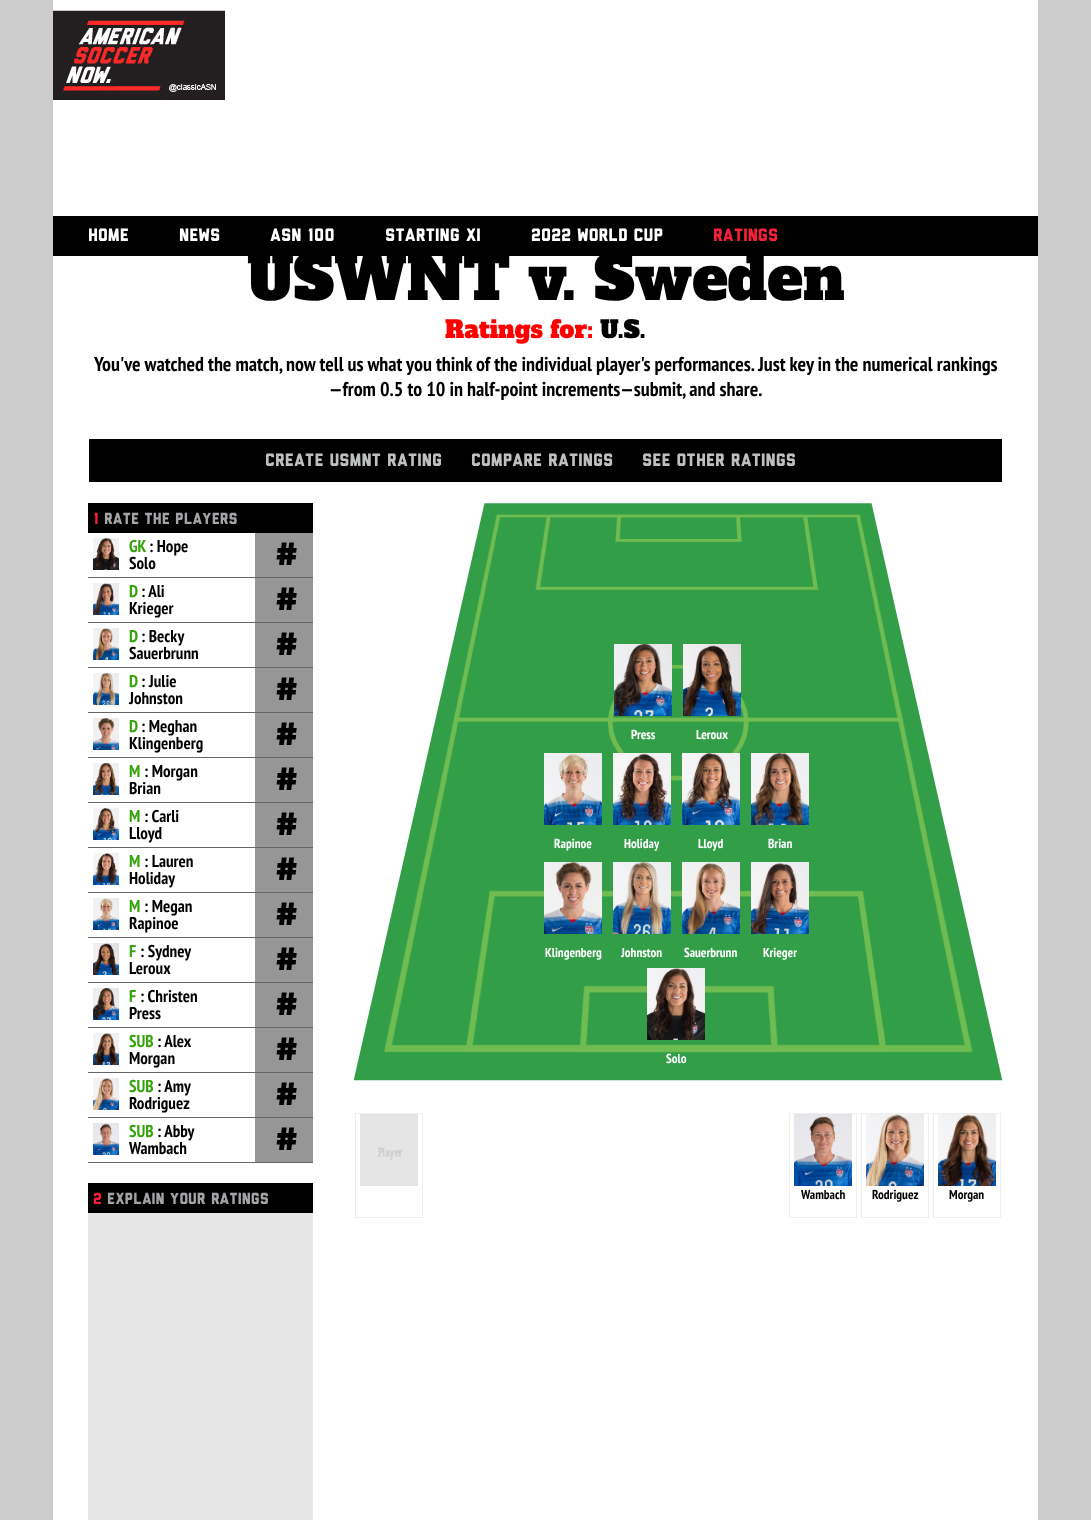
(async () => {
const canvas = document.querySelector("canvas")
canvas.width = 1091
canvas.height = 1520
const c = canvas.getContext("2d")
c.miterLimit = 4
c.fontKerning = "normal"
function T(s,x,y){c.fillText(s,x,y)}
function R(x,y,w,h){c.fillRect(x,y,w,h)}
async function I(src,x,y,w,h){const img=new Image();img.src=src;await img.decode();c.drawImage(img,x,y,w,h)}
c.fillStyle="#ccc"
R(0,0,1091,1520)
c.fillStyle="#fff"
R(53,0,985,1520)
await I("1.png",53,10,172,90)
c.fillStyle="#000"
R(53,216,985,40)
c.font="bold 18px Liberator"
c.fillStyle="#fff"
T("HOME",88,241)
T("NEWS",179,241)
T("ASN 100",270,241)
T("STARTING XI",385,241)
T("2022 WORLD CUP",531,241)
c.fillStyle="#f81f38"
T("RATINGS",713,241)
c.font="60px Alfa Slab One"
c.fillStyle="#000"
T("USWNT v. Sweden",247,300)
c.font="24px Alfa Slab One"
c.fillStyle="#f00"
T("Ratings for:",445,338)
c.fillStyle="#000"
T("U.S.",600,338)
c.font="bold 20px PT Sans Narrow"
T("You've watched the match, now tell us what you think of the individual player's performances. Just key in the numerical rankings",94,371)
T("—from 0.5 to 10 in half-point increments—submit, and share.",329,396)
R(89,439,913,43)
c.font="bold 18px Liberator"
c.fillStyle="#bebfc1"
T("CREATE USMNT RATING",265,466)
T("COMPARE RATINGS",471,466)
T("SEE OTHER RATINGS",642,466)
c.fillStyle="#000"
R(88,503,225,30)
c.font="bold 16px Liberator"
c.fillStyle="#f81f38"
T("1",93,524)
c.fillStyle="#a2a4a7"
T("RATE THE PLAYERS",104,524)
await I("2.png",93,538,26,32)
c.font="bold 17px PT Sans Narrow"
c.fillStyle="#35a30b"
T("GK",129,552)
c.fillStyle="#000"
T(": Hope",149,552)
T("Solo",129,569)
c.fillStyle="#969696"
R(255,533,58,44)
c.fillStyle="#666"
R(88,577,225,1)
c.font="bold 28px Alfa Slab One"
c.fillStyle="#000"
T("#",276,565)
await I("3.png",93,583,26,32)
c.font="bold 17px PT Sans Narrow"
c.fillStyle="#35a30b"
T("D",129,597)
c.fillStyle="#000"
T(": Ali",141,597)
T("Krieger",129,614)
c.fillStyle="#969696"
R(255,578,58,44)
c.fillStyle="#666"
R(88,622,225,1)
c.font="bold 28px Alfa Slab One"
c.fillStyle="#000"
T("#",276,610)
await I("4.png",93,628,26,32)
c.font="bold 17px PT Sans Narrow"
c.fillStyle="#35a30b"
T("D",129,642)
c.fillStyle="#000"
T(": Becky",141,642)
T("Sauerbrunn",129,659)
c.fillStyle="#969696"
R(255,623,58,44)
c.fillStyle="#666"
R(88,667,225,1)
c.font="bold 28px Alfa Slab One"
c.fillStyle="#000"
T("#",276,655)
await I("5.png",93,673,26,32)
c.font="bold 17px PT Sans Narrow"
c.fillStyle="#35a30b"
T("D",129,687)
c.fillStyle="#000"
T(": Julie",141,687)
T("Johnston",129,704)
c.fillStyle="#969696"
R(255,668,58,44)
c.fillStyle="#666"
R(88,712,225,1)
c.font="bold 28px Alfa Slab One"
c.fillStyle="#000"
T("#",276,700)
await I("6.png",93,718,26,32)
c.font="bold 17px PT Sans Narrow"
c.fillStyle="#35a30b"
T("D",129,732)
c.fillStyle="#000"
T(": Meghan",141,732)
T("Klingenberg",129,749)
c.fillStyle="#969696"
R(255,713,58,44)
c.fillStyle="#666"
R(88,757,225,1)
c.font="bold 28px Alfa Slab One"
c.fillStyle="#000"
T("#",276,745)
await I("7.png",93,763,26,32)
c.font="bold 17px PT Sans Narrow"
c.fillStyle="#35a30b"
T("M",129,777)
c.fillStyle="#000"
T(": Morgan",144,777)
T("Brian",129,794)
c.fillStyle="#969696"
R(255,758,58,44)
c.fillStyle="#666"
R(88,802,225,1)
c.font="bold 28px Alfa Slab One"
c.fillStyle="#000"
T("#",276,790)
await I("8.png",93,808,26,32)
c.font="bold 17px PT Sans Narrow"
c.fillStyle="#35a30b"
T("M",129,822)
c.fillStyle="#000"
T(": Carli",144,822)
T("Lloyd",129,839)
c.fillStyle="#969696"
R(255,803,58,44)
c.fillStyle="#666"
R(88,847,225,1)
c.font="bold 28px Alfa Slab One"
c.fillStyle="#000"
T("#",276,835)
await I("9.png",93,853,26,32)
c.font="bold 17px PT Sans Narrow"
c.fillStyle="#35a30b"
T("M",129,867)
c.fillStyle="#000"
T(": Lauren",144,867)
T("Holiday",129,884)
c.fillStyle="#969696"
R(255,848,58,44)
c.fillStyle="#666"
R(88,892,225,1)
c.font="bold 28px Alfa Slab One"
c.fillStyle="#000"
T("#",276,880)
await I("10.png",93,898,26,32)
c.font="bold 17px PT Sans Narrow"
c.fillStyle="#35a30b"
T("M",129,912)
c.fillStyle="#000"
T(": Megan",144,912)
T("Rapinoe",129,929)
c.fillStyle="#969696"
R(255,893,58,44)
c.fillStyle="#666"
R(88,937,225,1)
c.font="bold 28px Alfa Slab One"
c.fillStyle="#000"
T("#",276,925)
await I("11.png",93,943,26,32)
c.font="bold 17px PT Sans Narrow"
c.fillStyle="#35a30b"
T("F",129,957)
c.fillStyle="#000"
T(": Sydney",140,957)
T("Leroux",129,974)
c.fillStyle="#969696"
R(255,938,58,44)
c.fillStyle="#666"
R(88,982,225,1)
c.font="bold 28px Alfa Slab One"
c.fillStyle="#000"
T("#",276,970)
await I("12.png",93,988,26,32)
c.font="bold 17px PT Sans Narrow"
c.fillStyle="#35a30b"
T("F",129,1002)
c.fillStyle="#000"
T(": Christen",140,1002)
T("Press",129,1019)
c.fillStyle="#969696"
R(255,983,58,44)
c.fillStyle="#666"
R(88,1027,225,1)
c.font="bold 28px Alfa Slab One"
c.fillStyle="#000"
T("#",276,1015)
await I("13.png",93,1033,26,32)
c.font="bold 17px PT Sans Narrow"
c.fillStyle="#35a30b"
T("SUB",129,1047)
c.fillStyle="#000"
T(": Alex",157,1047)
T("Morgan",129,1064)
c.fillStyle="#969696"
R(255,1028,58,44)
c.fillStyle="#666"
R(88,1072,225,1)
c.font="bold 28px Alfa Slab One"
c.fillStyle="#000"
T("#",276,1060)
await I("14.png",93,1078,26,32)
c.font="bold 17px PT Sans Narrow"
c.fillStyle="#35a30b"
T("SUB",129,1092)
c.fillStyle="#000"
T(": Amy",157,1092)
T("Rodriguez",129,1109)
c.fillStyle="#969696"
R(255,1073,58,44)
c.fillStyle="#666"
R(88,1117,225,1)
c.font="bold 28px Alfa Slab One"
c.fillStyle="#000"
T("#",276,1105)
await I("15.png",93,1123,26,32)
c.font="bold 17px PT Sans Narrow"
c.fillStyle="#35a30b"
T("SUB",129,1137)
c.fillStyle="#000"
T(": Abby",157,1137)
T("Wambach",129,1154)
c.fillStyle="#969696"
R(255,1118,58,44)
c.fillStyle="#666"
R(88,1162,225,1)
c.font="bold 28px Alfa Slab One"
c.fillStyle="#000"
T("#",276,1150)
c.fillStyle="#e6e6e6"
R(88,1213,225,307)
c.fillStyle="#000"
R(88,1183,225,30)
c.font="bold 16px Liberator"
c.fillStyle="#f81f38"
T("2",93,1204)
c.fillStyle="#a2a4a7"
T("EXPLAIN YOUR RATINGS",107,1204)
await I("16.png",353,503,650,578)
await I("17.png",614,644,58,72)
c.font="bold 13px PT Sans Narrow"
c.fillStyle="#fff"
T("Press",631,739)
await I("18.png",683,644,58,72)
T("Leroux",696,739)
await I("19.png",544,753,58,72)
T("Rapinoe",554,848)
await I("20.png",613,753,58,72)
T("Holiday",624,848)
await I("21.png",682,753,58,72)
T("Lloyd",698,848)
await I("22.png",751,753,58,72)
T("Brian",768,848)
await I("23.png",544,862,58,72)
T("Klingenberg",545,957)
await I("24.png",613,862,58,72)
T("Johnston",621,957)
await I("25.png",682,862,58,72)
T("Sauerbrunn",684,957)
await I("26.png",751,862,58,72)
T("Krieger",763,957)
await I("27.png",647,968,58,72)
T("Solo",666,1063)
c.strokeStyle="#eee"
c.strokeRect(355.5,1113.5,67,104)
await I("28.png",360,1114,58,72)
c.strokeRect(789.5,1113.5,67,104)
await I("29.png",794,1114,58,72)
c.fillStyle="#000"
T("Wambach",801,1199)
c.strokeRect(861.5,1113.5,67,104)
await I("30.png",866,1114,58,72)
T("Rodriguez",872,1199)
c.strokeRect(933.5,1113.5,67,104)
await I("31.png",938,1114,58,72)
T("Morgan",949,1199)
})()
